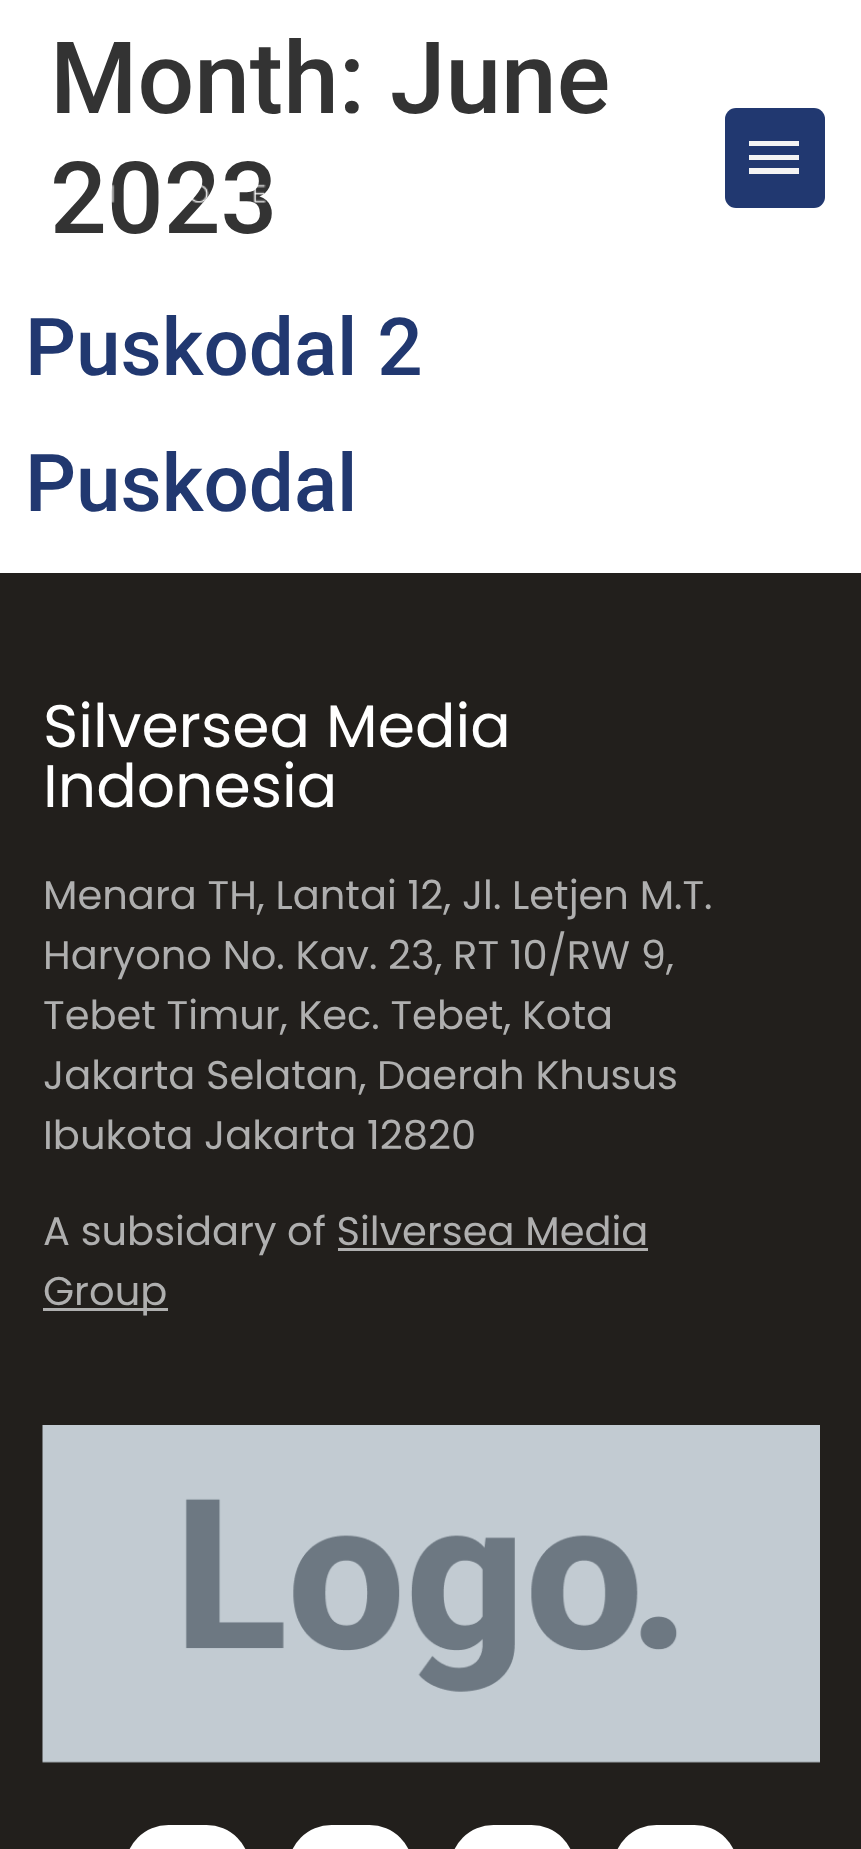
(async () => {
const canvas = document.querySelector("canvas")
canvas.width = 861
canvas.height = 1849
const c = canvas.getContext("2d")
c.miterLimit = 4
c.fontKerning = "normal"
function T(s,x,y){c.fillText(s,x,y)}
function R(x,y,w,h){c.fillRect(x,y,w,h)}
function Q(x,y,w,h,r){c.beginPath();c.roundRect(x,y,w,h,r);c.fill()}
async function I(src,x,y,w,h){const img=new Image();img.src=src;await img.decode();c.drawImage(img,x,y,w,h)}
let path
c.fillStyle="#fff"
R(0,0,861,1849)
c.font="500 100px Roboto"
c.fillStyle="#333"
T("Month: June",50,113)
T("2023",50,233)
c.font="500 80px Roboto"
c.fillStyle="#213870"
T("Puskodal 2",25,375)
T("Puskodal",25,511)
await I("1.png",111,110,155,93)
Q(725,108,100,100,11)
c.fillStyle="#f4f4f4"
path = new Path2D("M749 174h50v-6h-50zm0-14h50v-5h-50zm0-19v5h50v-5z")
c.fill(path)
c.fillStyle="#221f1c"
R(0,573,861,1276)
c.font="60px Poppins"
c.fillStyle="#fff"
T("Silversea Media",43,747)
T("Indonesia",43,807)
c.font="40px Poppins"
c.fillStyle="#afafaf"
T("Menara TH, Lantai 12, Jl. Letjen M.T.",43,909)
T("Haryono No. Kav. 23, RT 10/RW 9,",43,969)
T("Tebet Timur, Kec. Tebet, Kota",43,1029)
T("Jakarta Selatan, Daerah Khusus",43,1089)
T("Ibukota Jakarta 12820",43,1149)
T("A subsidary of Silversea Media",43,1245)
R(43,1308,125,3)
T("Group",43,1305)
R(338,1248,310,3)
await I("2.png",42,1425,778,338)
c.fillStyle="#fff"
Q(125,1825,125,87,62.5)
Q(288,1825,125,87,62.5)
Q(450,1825,125,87,62.5)
Q(613,1825,125,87,62.5)
})()
